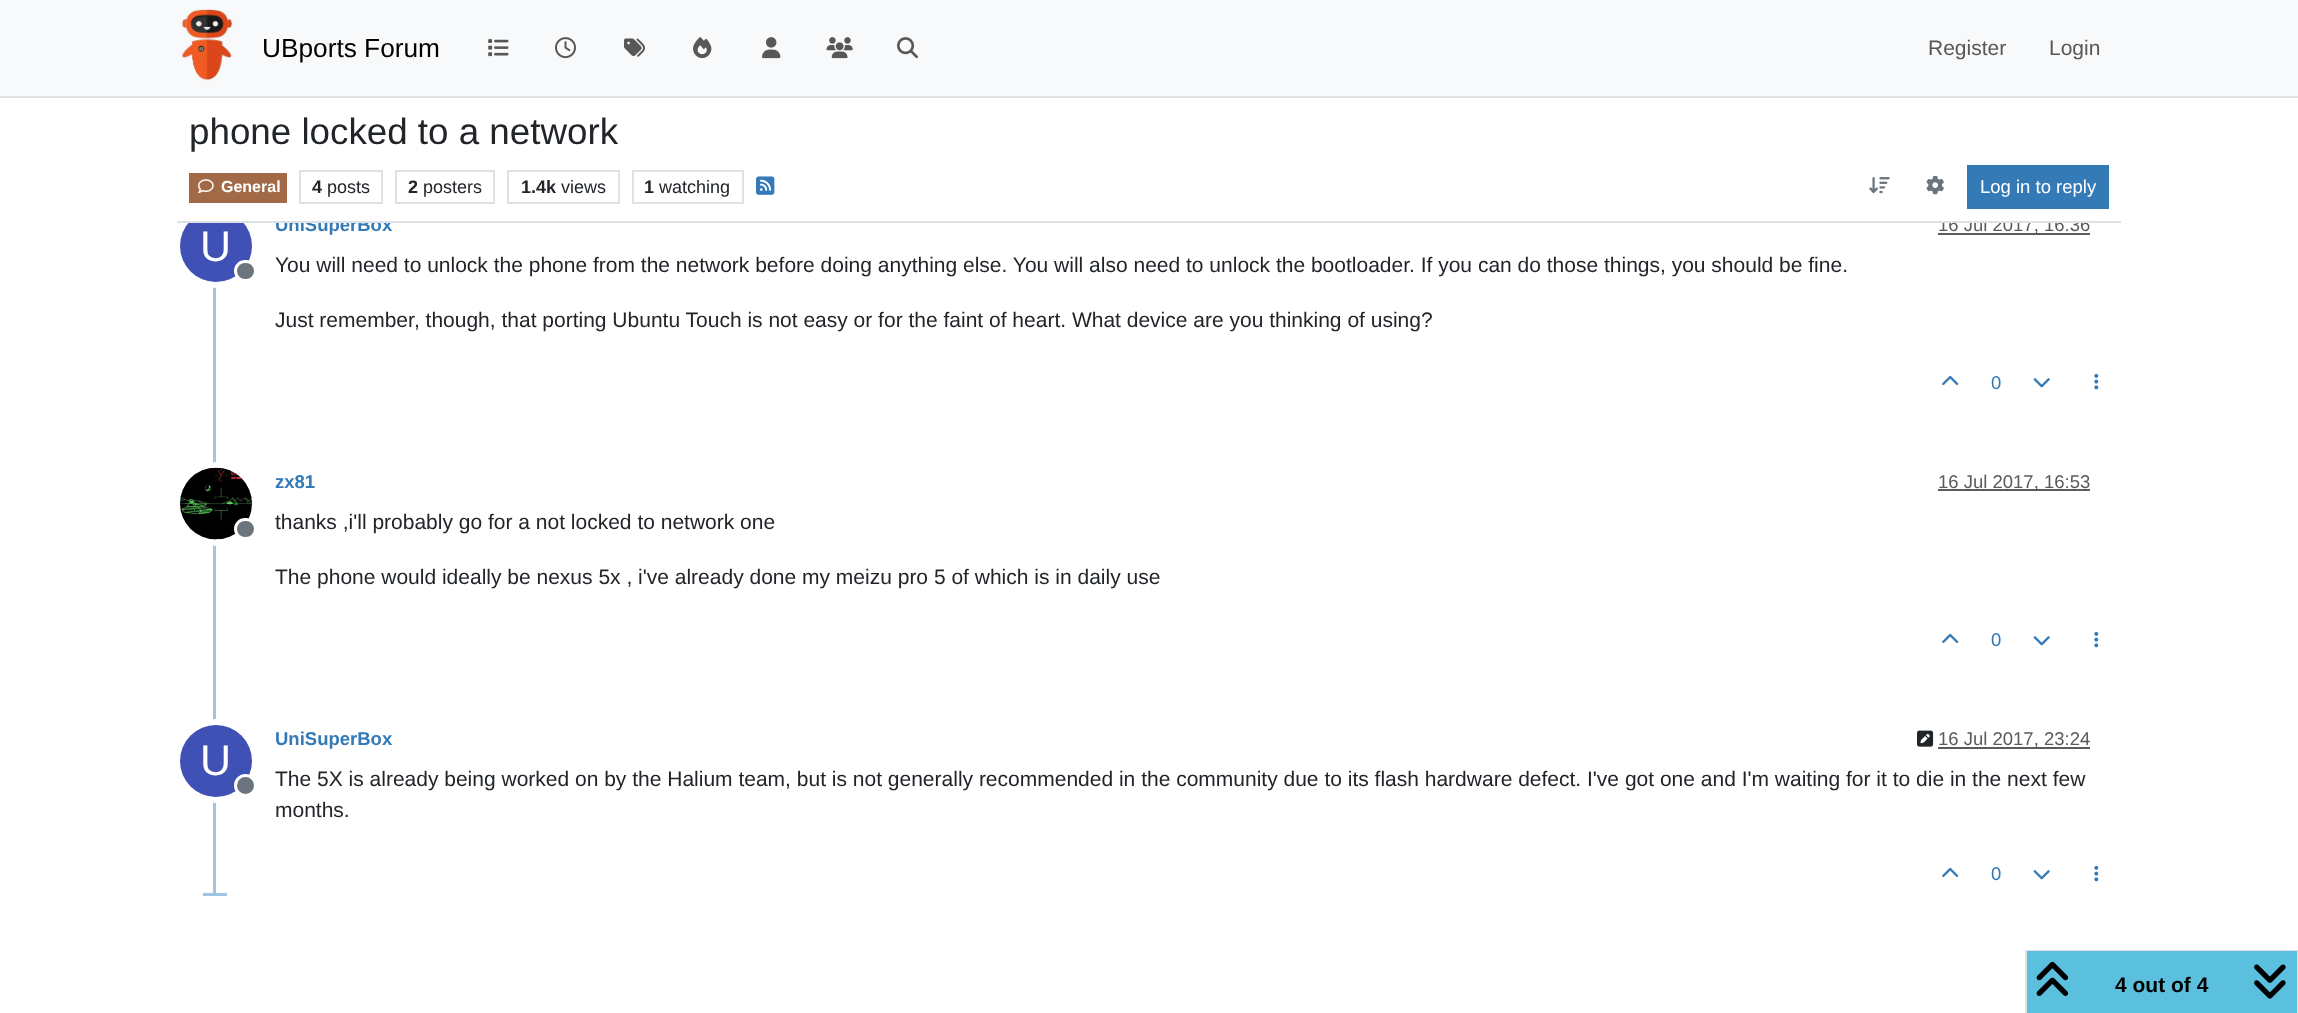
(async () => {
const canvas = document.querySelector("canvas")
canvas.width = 2298
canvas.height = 1013
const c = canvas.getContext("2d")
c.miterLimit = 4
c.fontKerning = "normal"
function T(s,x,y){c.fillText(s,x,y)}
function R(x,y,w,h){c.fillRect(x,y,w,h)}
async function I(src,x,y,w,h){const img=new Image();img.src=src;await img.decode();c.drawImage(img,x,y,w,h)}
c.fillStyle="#fff"
R(0,0,2298,1013)
c.fillStyle="#f8f9fa"
R(0,0,2298,96)
c.fillStyle="#dee2e6"
R(0,96,2298,2)
await I("1.png",181,9,52,72)
c.font="26.25px Liberation Sans"
c.fillStyle="#000"
T("UBports Forum",262,57)
await I("2.png",488,39,21,18)
await I("3.png",555,37,21,22)
await I("4.png",624,38,21,19)
await I("5.png",693,37,19,22)
await I("6.png",762,37,19,22)
await I("7.png",826,37,27,22)
await I("8.png",897,37,21,22)
c.font="21px Liberation Sans"
c.fillStyle="#575758"
T("Register",1928,55)
T("Login",2049,55)
c.font="bold 18.5px Liberation Sans"
c.fillStyle="#337ab7"
T("UniSuperBox",275,231)
c.fillStyle="#595c5f"
R(1938,233,152,2)
c.font="18.5px Liberation Sans"
c.fillStyle="#585b5e"
T("16 Jul 2017, 16:36",1938,231)
c.fillStyle="#a0c4e4"
R(213,281,3,615)
c.beginPath()
c.arc(216,246,39,0,7)
c.strokeStyle="#fff"
c.lineWidth=6
c.stroke()
c.fillStyle="#3f51b5"
c.beginPath()
c.arc(216,246,36,0,7)
c.fill()
c.fillStyle="#fff"
R(190,210,1899,11)
c.fillStyle="#dee2e6"
R(177,221,1944,2)
c.font="36.75px Liberation Sans"
c.fillStyle="#212529"
T("phone locked to a network",189,144)
c.fillStyle="#a16946"
R(189,173,98,30)
await I("9.png",198,179,16,14)
c.font="bold 16px Liberation Sans"
c.fillStyle="#fff"
T("General",221,192)
c.strokeStyle="#dee2e6"
c.lineWidth=2
c.strokeRect(300,171,82,32)
c.font="bold 18px Liberation Sans"
c.fillStyle="#212529"
T("4",312,193)
c.font="18px Liberation Sans"
T("posts",327,193)
c.strokeRect(396,171,98,32)
c.font="bold 18px Liberation Sans"
T("2",408,193)
c.font="18px Liberation Sans"
T("posters",423,193)
c.strokeRect(508,171,111,32)
c.font="bold 18px Liberation Sans"
T("1.4k",521,193)
c.font="18px Liberation Sans"
T("views",561,193)
c.strokeRect(633,171,110,32)
c.font="bold 18px Liberation Sans"
T("1",644,193)
c.font="18px Liberation Sans"
T("watching",659,193)
await I("10.png",756,176,19,19)
await I("11.png",1869,177,21,17)
await I("12.png",1926,175,18,20)
c.fillStyle="#337ab7"
R(1967,165,142,44)
c.font="18.5px Liberation Sans"
c.fillStyle="#fff"
T("Log in to reply",1980,193)
c.font="43px Liberation Sans"
T("U",200,261)
c.fillStyle="#6c757d"
c.beginPath()
c.roundRect(235.5,261.5,20,19,9.5)
c.fill()
c.strokeStyle="#fff"
c.lineWidth=3
c.stroke()
c.font="21px Liberation Sans"
c.fillStyle="#212529"
T("You will need to unlock the phone from the network before doing anything else. You will also need to unlock the bootloader. If you can do those things, you should be fine.",275,272)
T("Just remember, though, that porting Ubuntu Touch is not easy or for the faint of heart. What device are you thinking of using?",275,327)
await I("13.png",1942,375,17,10)
c.font="18.5px Liberation Sans"
c.fillStyle="#337ab7"
T("0",1991,389)
await I("14.png",2033,378,17,10)
await I("15.png",2094,373,5,17)
c.beginPath()
c.arc(216,504,39,0,7)
c.lineWidth=6
c.stroke()
await I("16.png",180,467,72,73)
c.fillStyle="#6c757d"
c.beginPath()
c.roundRect(235.5,519.5,20,19,9.5)
c.fill()
c.lineWidth=3
c.stroke()
c.font="bold 18.5px Liberation Sans"
c.fillStyle="#337ab7"
T("zx81",275,488)
c.fillStyle="#595c5f"
R(1938,489,152,2)
c.font="18.5px Liberation Sans"
c.fillStyle="#585b5e"
T("16 Jul 2017, 16:53",1938,488)
c.font="21px Liberation Sans"
c.fillStyle="#212529"
T("thanks ,i'll probably go for a not locked to network one",275,529)
T("The phone would ideally be nexus 5x , i've already done my meizu pro 5 of which is in daily use",275,584)
await I("13.png",1942,633,17,10)
c.font="18.5px Liberation Sans"
c.fillStyle="#337ab7"
T("0",1991,646)
await I("14.png",2033,636,17,10)
await I("15.png",2094,631,5,17)
c.font="bold 18.5px Liberation Sans"
T("UniSuperBox",275,745)
await I("17.png",1917,730,17,17)
c.fillStyle="#595c5f"
R(1938,747,152,2)
c.font="18.5px Liberation Sans"
c.fillStyle="#585b5e"
T("16 Jul 2017, 23:24",1938,745)
c.beginPath()
c.arc(216,761,39,0,7)
c.lineWidth=6
c.stroke()
c.fillStyle="#3f51b5"
c.beginPath()
c.arc(216,761,36,0,7)
c.fill()
c.font="43px Liberation Sans"
c.fillStyle="#fff"
T("U",200,775)
c.fillStyle="#6c757d"
c.beginPath()
c.arc(245.5,785.5,10,0,7)
c.fill()
c.lineWidth=3
c.stroke()
c.font="21px Liberation Sans"
c.fillStyle="#212529"
T("The 5X is already being worked on by the Halium team, but is not generally recommended in the community due to its flash hardware defect. I've got one and I'm waiting for it to die in the next few",275,786)
T("months.",275,817)
await I("13.png",1942,867,17,10)
c.font="18.5px Liberation Sans"
c.fillStyle="#337ab7"
T("0",1991,880)
await I("14.png",2033,870,17,10)
await I("15.png",2094,865,5,17)
c.fillStyle="#a0c4e4"
R(203,893,24,3)
c.strokeStyle="#dee2e6"
c.lineWidth=2
c.strokeRect(2026,951,271,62)
c.fillStyle="#5bc0de"
R(2027,951,270,62)
await I("18.png",2036,961,33,35)
c.font="bold 21px Liberation Sans"
c.fillStyle="#000"
T("4 out of 4",2115,992)
await I("19.png",2254,964,32,35)
})()
